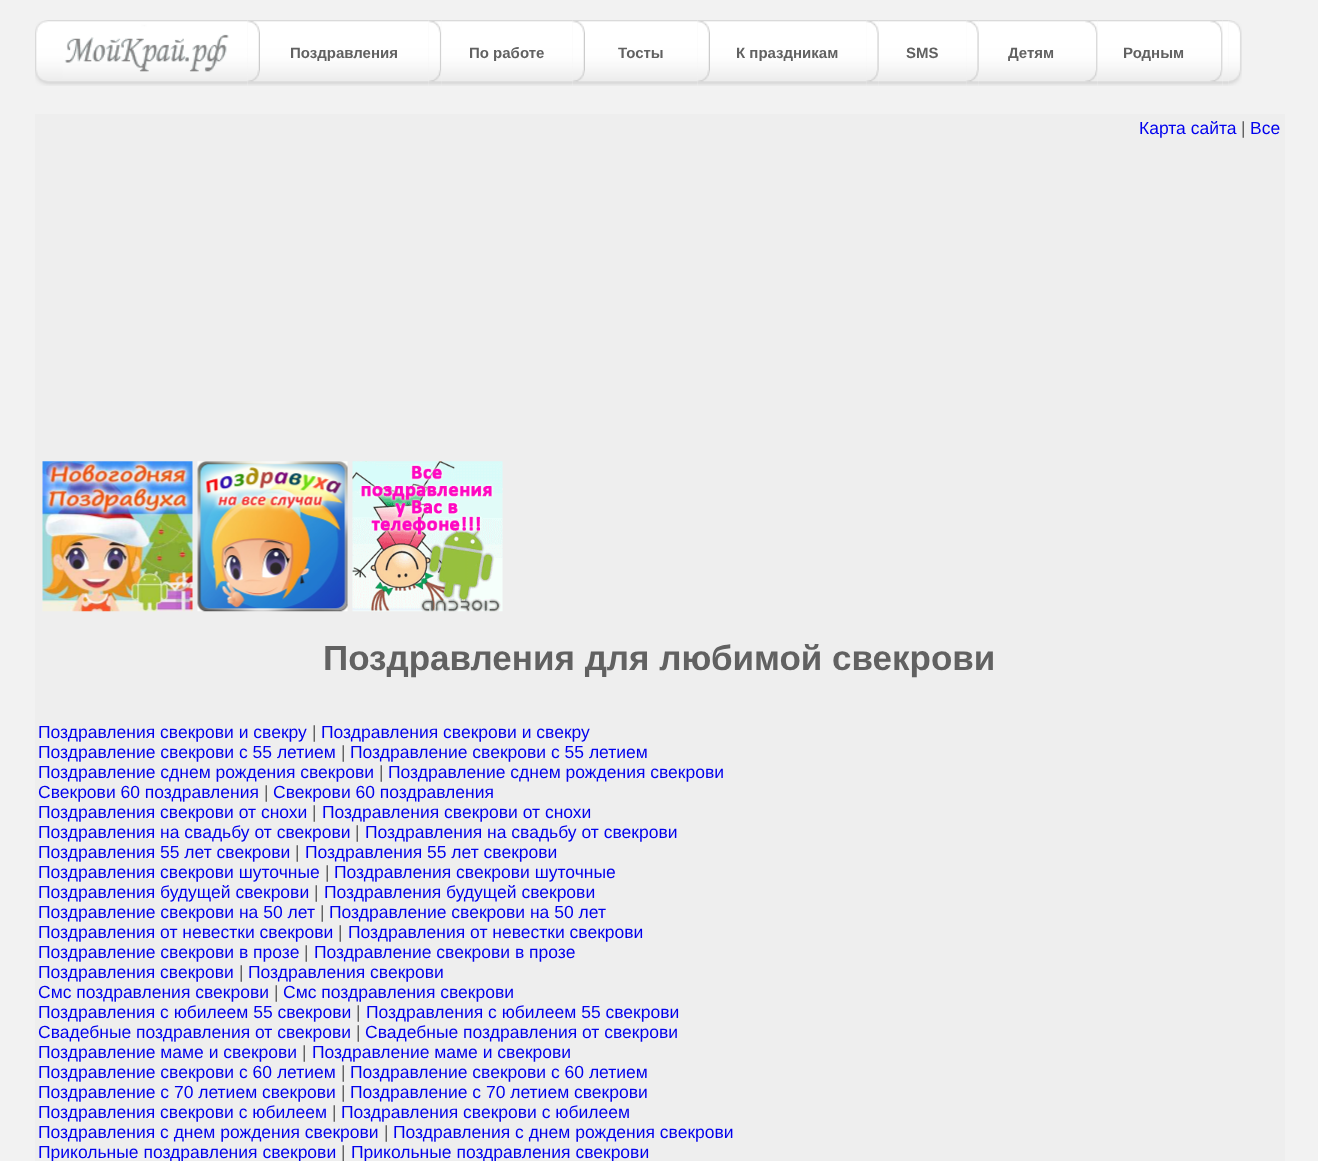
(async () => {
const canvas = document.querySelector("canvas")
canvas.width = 1318
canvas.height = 1161
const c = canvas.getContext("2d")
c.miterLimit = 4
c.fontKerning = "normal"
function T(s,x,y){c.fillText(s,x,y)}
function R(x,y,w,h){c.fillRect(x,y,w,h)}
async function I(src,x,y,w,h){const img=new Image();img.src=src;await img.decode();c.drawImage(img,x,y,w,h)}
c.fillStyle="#f2f2f2"
R(0,0,1318,1161)
await I("1.png",35,20,213,66)
await I("2.png",247,20,13,66)
await I("3.png",260,20,169,66)
c.font="bold 15px Liberation Sans"
c.fillStyle="#616161"
T("Поздравления",290,58)
await I("4.png",429,20,13,66)
await I("5.png",441,20,132,66)
T("По работе",469,58)
await I("6.png",572,20,13,66)
await I("7.png",585,20,113,66)
T("Тосты",618,58)
await I("8.png",697,20,13,66)
await I("9.png",710,20,157,66)
T("К праздникам",736,58)
await I("10.png",866,20,13,66)
await I("11.png",878,20,89,66)
T("SMS",906,58)
await I("10.png",966,20,13,66)
await I("12.png",978,20,107,66)
T("Детям",1008,58)
await I("13.png",1085,20,13,66)
await I("14.png",1097,20,113,66)
T("Родным",1123,58)
await I("13.png",1210,20,13,66)
await I("15.png",1222,20,7,66)
await I("16.png",1229,20,13,66)
c.fillStyle="#eee"
R(35,114,1250,1047)
c.font="17.5px Liberation Sans"
c.fillStyle="#00e"
T("Карта сайта",1139,134)
c.fillStyle="#616161"
T("|",1241,134)
c.fillStyle="#00e"
T("Все",1250,134)
await I("17.png",42,461,151,151)
await I("18.png",197,461,151,151)
await I("19.png",352,461,151,151)
c.font="bold 35px Liberation Sans"
c.fillStyle="#616161"
T("Поздравления для любимой свекрови",323,670)
c.font="17.5px Liberation Sans"
c.fillStyle="#00e"
T("Поздравления свекрови и свекру",38,738)
c.fillStyle="#616161"
T("|",312,738)
c.fillStyle="#00e"
T("Поздравления свекрови и свекру",321,738)
T("Поздравление свекрови с 55 летием",38,758)
c.fillStyle="#616161"
T("|",341,758)
c.fillStyle="#00e"
T("Поздравление свекрови с 55 летием",350,758)
T("Поздравление сднем рождения свекрови",38,778)
c.fillStyle="#616161"
T("|",379,778)
c.fillStyle="#00e"
T("Поздравление сднем рождения свекрови",388,778)
T("Свекрови 60 поздравления",38,798)
c.fillStyle="#616161"
T("|",264,798)
c.fillStyle="#00e"
T("Свекрови 60 поздравления",273,798)
T("Поздравления свекрови от снохи",38,818)
c.fillStyle="#616161"
T("|",312,818)
c.fillStyle="#00e"
T("Поздравления свекрови от снохи",322,818)
T("Поздравления на свадьбу от свекрови",38,838)
c.fillStyle="#616161"
T("|",355,838)
c.fillStyle="#00e"
T("Поздравления на свадьбу от свекрови",365,838)
T("Поздравления 55 лет свекрови",38,858)
c.fillStyle="#616161"
T("|",295,858)
c.fillStyle="#00e"
T("Поздравления 55 лет свекрови",305,858)
T("Поздравления свекрови шуточные",38,878)
c.fillStyle="#616161"
T("|",325,878)
c.fillStyle="#00e"
T("Поздравления свекрови шуточные",334,878)
T("Поздравления будущей свекрови",38,898)
c.fillStyle="#616161"
T("|",314,898)
c.fillStyle="#00e"
T("Поздравления будущей свекрови",324,898)
T("Поздравление свекрови на 50 лет",38,918)
c.fillStyle="#616161"
T("|",320,918)
c.fillStyle="#00e"
T("Поздравление свекрови на 50 лет",329,918)
T("Поздравления от невестки свекрови",38,938)
c.fillStyle="#616161"
T("|",338,938)
c.fillStyle="#00e"
T("Поздравления от невестки свекрови",348,938)
T("Поздравление свекрови в прозе",38,958)
c.fillStyle="#616161"
T("|",304,958)
c.fillStyle="#00e"
T("Поздравление свекрови в прозе",314,958)
T("Поздравления свекрови",38,978)
c.fillStyle="#616161"
T("|",239,978)
c.fillStyle="#00e"
T("Поздравления свекрови",248,978)
T("Смс поздравления свекрови",38,998)
c.fillStyle="#616161"
T("|",274,998)
c.fillStyle="#00e"
T("Смс поздравления свекрови",283,998)
T("Поздравления с юбилеем 55 свекрови",38,1018)
c.fillStyle="#616161"
T("|",356,1018)
c.fillStyle="#00e"
T("Поздравления с юбилеем 55 свекрови",366,1018)
T("Свадебные поздравления от свекрови",38,1038)
c.fillStyle="#616161"
T("|",356,1038)
c.fillStyle="#00e"
T("Свадебные поздравления от свекрови",365,1038)
T("Поздравление маме и свекрови",38,1058)
c.fillStyle="#616161"
T("|",302,1058)
c.fillStyle="#00e"
T("Поздравление маме и свекрови",312,1058)
T("Поздравление свекрови с 60 летием",38,1078)
c.fillStyle="#616161"
T("|",341,1078)
c.fillStyle="#00e"
T("Поздравление свекрови с 60 летием",350,1078)
T("Поздравление с 70 летием свекрови",38,1098)
c.fillStyle="#616161"
T("|",341,1098)
c.fillStyle="#00e"
T("Поздравление с 70 летием свекрови",350,1098)
T("Поздравления свекрови с юбилеем",38,1118)
c.fillStyle="#616161"
T("|",332,1118)
c.fillStyle="#00e"
T("Поздравления свекрови с юбилеем",341,1118)
T("Поздравления с днем рождения свекрови",38,1138)
c.fillStyle="#616161"
T("|",384,1138)
c.fillStyle="#00e"
T("Поздравления с днем рождения свекрови",393,1138)
T("Прикольные поздравления свекрови",38,1158)
c.fillStyle="#616161"
T("|",341,1158)
c.fillStyle="#00e"
T("Прикольные поздравления свекрови",351,1158)
})()
